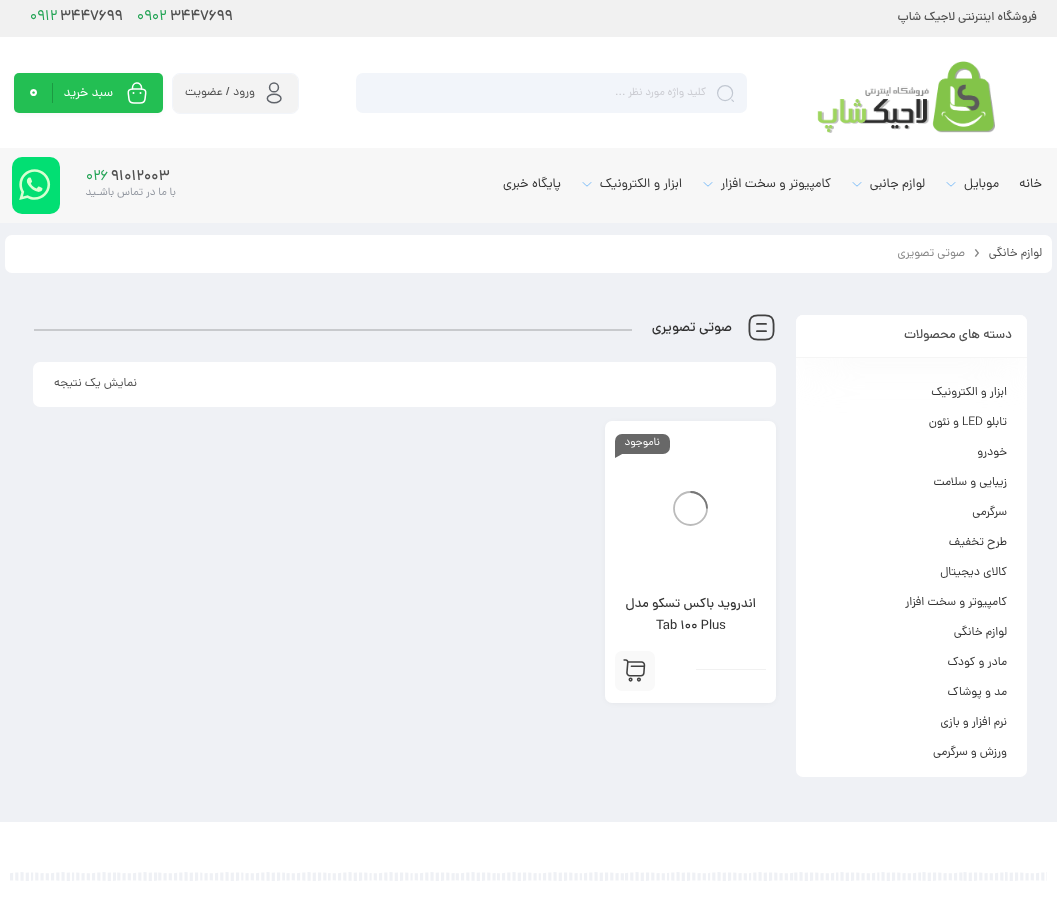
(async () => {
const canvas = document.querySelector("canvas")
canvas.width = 1057
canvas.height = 924
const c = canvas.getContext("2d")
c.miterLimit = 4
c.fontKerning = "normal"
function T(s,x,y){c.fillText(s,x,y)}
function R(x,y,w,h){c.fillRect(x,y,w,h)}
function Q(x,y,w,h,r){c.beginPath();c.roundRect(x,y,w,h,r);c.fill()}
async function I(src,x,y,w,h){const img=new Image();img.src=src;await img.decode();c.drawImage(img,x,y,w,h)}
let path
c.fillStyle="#eff1f5"
R(0,0,1057,924)
c.fillStyle="#f1f1f1"
R(0,0,1057,37)
c.direction="rtl"
c.font="500 12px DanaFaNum"
c.fillStyle="#505050"
T("فروشگاه اینترنتی لاجیک شاپ",1037,20)
c.direction="ltr"
c.font="500 15px DanaFaNum"
T("3447699",170,20)
c.font="15px DanaFaNum"
c.fillStyle="#23a455"
T("0902",137,20)
c.font="500 15px DanaFaNum"
c.fillStyle="#505050"
T("3447699",60,20)
c.font="15px DanaFaNum"
c.fillStyle="#23a455"
T("0912",30,20)
c.fillStyle="#fff"
R(0,37,1057,111)
await I("1.png",817,61,178,72)
c.fillStyle="#f2f5fa"
Q(356,73,391,40,7)
await I("2.png",717,85,17,17)
c.direction="rtl"
c.font="11px DanaFaNum"
c.fillStyle="#cbccd2"
T("کلید واژه مورد نظر ...",706,95)
c.beginPath()
c.roundRect(172.5,73.5,126,40,7.5)
c.strokeStyle="#f2f5fa"
c.stroke()
c.fillStyle="#f3f3f3"
Q(173,74,125,39,7)
await I("3.png",266,82,16,22)
c.font="12px DanaFaNum"
c.fillStyle="#505050"
T("ورود / عضویت",255,95)
c.fillStyle="#0000001a"
c.filter="blur(3.5px)"
c.beginPath()
c.roundRect(17,77,143,34,2)
c.fill()
c.filter="none"
c.fillStyle="#23bf53"
Q(14,73,149,40,5)
await I("4.png",127,82,20,22)
c.font="13px DanaFaNum"
c.fillStyle="#fff"
T("سبد خرید",113,96)
c.fillStyle="#1c9942"
R(52,83,1,20)
c.direction="ltr"
c.font="bold 18px DanaFaNum"
c.fillStyle="#fff"
T("0",29,97)
c.fillStyle="#f7f7f7"
R(0,148,1057,75)
c.direction="rtl"
c.font="13px DanaFaNum"
c.fillStyle="#333"
T("خانه",1042,187)
T("موبایل",999,187)
await I("5.png",946,182,10,5)
T("لوازم جانبی",925,187)
await I("5.png",852,182,10,5)
T("کامپیوتر و سخت افزار",831,187)
await I("5.png",703,182,10,5)
T("ابزار و الکترونیک",682,187)
await I("5.png",582,182,10,5)
T("پایگاه خبری",561,187)
c.direction="ltr"
c.font="500 15px DanaFaNum"
c.fillStyle="#505050"
T("91012003",111,180)
c.font="15px DanaFaNum"
c.fillStyle="#23a455"
T("026",86,180)
c.direction="rtl"
c.font="11px DanaFaNum"
c.fillStyle="#91969f"
T("با ما در تماس باشـید",176,195)
c.fillStyle="#02df73"
Q(12,157,48,57,10)
await I("6.png",19,169,32,31)
c.fillStyle="#fff"
Q(5,235,1047,38,7)
c.font="12px DanaFaNum"
c.fillStyle="#505050"
T("لوازم خانگی",1042,256)
c.direction="ltr"
c.font="19px Noto Sans"
c.fillStyle="#888"
T("›",974,258)
c.direction="rtl"
c.font="12px DanaFaNum"
T("صوتی تصویری",965,256)
c.fillStyle="#fff"
Q(796,315,231,462,7)
Q(33,362,743,45,7)
c.fillStyle="#0000001a"
c.filter="blur(3.5px)"
c.beginPath()
c.roundRect(608,425,165,276,4)
c.fill()
c.filter="none"
c.fillStyle="#fff"
Q(605,421,171,282,7)
c.save()
c.beginPath()
c.roundRect(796,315,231,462,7)
c.clip()
c.fillStyle="#f5f5f5"
c.filter="blur(25px)"
c.beginPath()
c.rect(805,328,213,25)
c.fill()
c.filter="none"
c.restore()
c.beginPath()
c.roundRect(796,315,231,43,[7,7,0,0])
c.fill()
c.fillStyle="#f5f5f5"
R(796,357,231,1)
c.font="500 13px DanaFaNum"
c.fillStyle="#505050"
T("دسته های محصولات",1012,338)
c.font="12px DanaFaNum"
c.fillStyle="#333"
T("ابزار و الکترونیک",1007,395)
T("تابلو",1007,425)
c.direction="ltr"
T("LED",962,425)
c.direction="rtl"
T("و نئون",959,425)
T("خودرو",1007,455)
T("زیبایی و سلامت",1007,485)
T("سرگرمی",1007,515)
T("طرح تخفیف",1007,545)
T("کالای دیجیتال",1007,575)
T("کامپیوتر و سخت افزار",1007,605)
T("لوازم خانگی",1007,635)
T("مادر و کودک",1007,665)
T("مد و پوشاک",1007,695)
T("نرم افزار و بازی",1007,725)
T("ورزش و سرگرمی",1007,755)
await I("7.png",748,314,27,27)
c.font="500 14px DanaFaNum"
T("صوتی تصویری",732,331)
c.fillStyle="#c8cacd"
R(34,329,598,2)
c.font="12px DanaFaNum"
c.fillStyle="#505050"
T("نمایش یک نتیجه",137,386)
c.beginPath()
c.arc(690.5,508.5,16.5,0,7)
c.strokeStyle="#bbb"
c.lineWidth=1.8
c.stroke()
path = new Path2D("M707 508.5c0-9-7.5-16.5-16.5-16.5")
c.strokeStyle="#777"
c.stroke(path)
c.fillStyle="#686868"
c.beginPath()
c.roundRect(615,434,55,20,[7,7,7,0])
c.fill()
c.font="11px DanaFaNum"
c.fillStyle="#fff"
T("ناموجود",660,445)
c.fillStyle="#686868"
path = new Path2D("M615 453h9l-9 5z")
c.fill(path)
c.font="500 13px DanaFaNum"
c.fillStyle="#333"
T("اندروید باکس تسکو مدل",756,607)
c.direction="ltr"
T("Tab 100 Plus",656,629)
c.fillStyle="#f1f1f1"
R(696,669,70,1)
c.fillStyle="#f9f9f9"
Q(615,651,40,40,7)
await I("8.png",623,659,23,23)
c.fillStyle="#fff"
R(0,822,1057,102)
await I("9.png",10,872,1037,9)
})()
